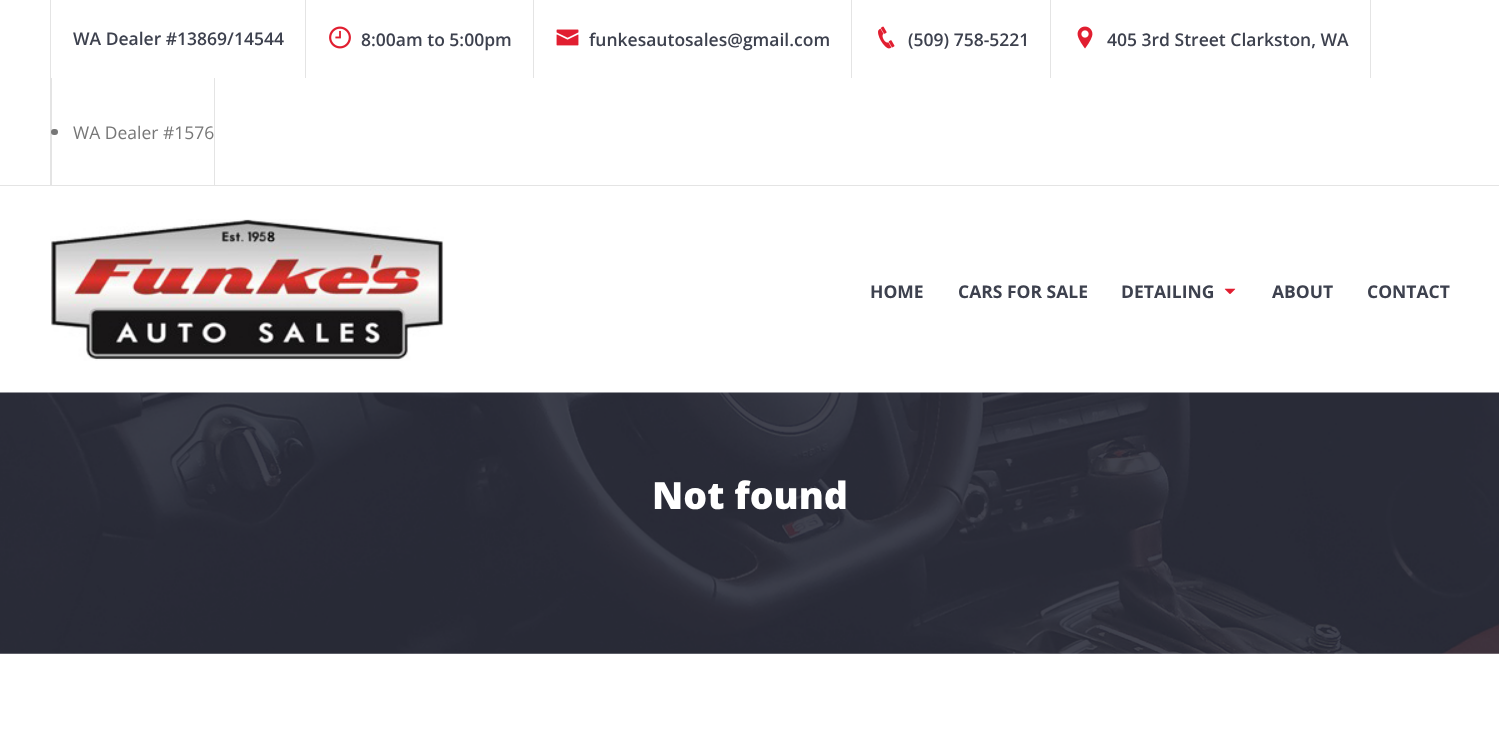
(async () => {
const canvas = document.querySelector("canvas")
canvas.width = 1499
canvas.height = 742
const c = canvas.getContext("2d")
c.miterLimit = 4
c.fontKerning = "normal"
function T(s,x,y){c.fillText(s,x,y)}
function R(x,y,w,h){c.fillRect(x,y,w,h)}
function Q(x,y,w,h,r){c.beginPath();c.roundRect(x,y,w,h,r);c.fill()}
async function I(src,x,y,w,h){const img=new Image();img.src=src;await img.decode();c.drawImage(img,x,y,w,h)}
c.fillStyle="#fff"
R(0,0,1499,742)
c.fillStyle="#e4e4e4"
R(0,185,1499,1)
R(1370,0,1,78)
R(50,0,1,185)
R(305,0,1,78)
c.font="600 17.5px Open Sans"
c.fillStyle="#3d414e"
T("WA Dealer #13869/14544",73,45)
c.fillStyle="#e4e4e4"
R(533,0,1,78)
await I("1.png",329,26,22,23)
c.fillStyle="#3d414e"
T("8:00am to 5:00pm",361,46)
c.fillStyle="#e4e4e4"
R(851,0,1,78)
await I("2.png",556,29,23,17)
c.fillStyle="#3d414e"
T("funkesautosales@gmail.com",589,46)
c.fillStyle="#e4e4e4"
R(1050,0,1,78)
await I("3.png",878,26,17,23)
c.fillStyle="#3d414e"
T("(509) 758-5221",908,46)
await I("4.png",1077,26,16,23)
T("405 3rd Street Clarkston, WA",1107,46)
c.fillStyle="#e4e4e4"
R(214,78,1,107)
R(51,78,1,107)
c.fillStyle="#777"
Q(51,129,7,6,3)
c.font="17.5px Open Sans"
T("WA Dealer #1576",73,139)
await I("5.png",50,219,394,142)
c.font="bold 17.5px Open Sans"
c.fillStyle="#3d414e"
T("HOME",870,298)
T("CARS FOR SALE",958,298)
T("DETAILING",1121,298)
await I("6.png",1224,288,12,6)
T("ABOUT",1272,298)
T("CONTACT",1367,298)
await I("7.png",0,392,1499,262)
c.font="800 37.5px Open Sans"
c.fillStyle="#fff"
T("Not found",652,509)
})()
